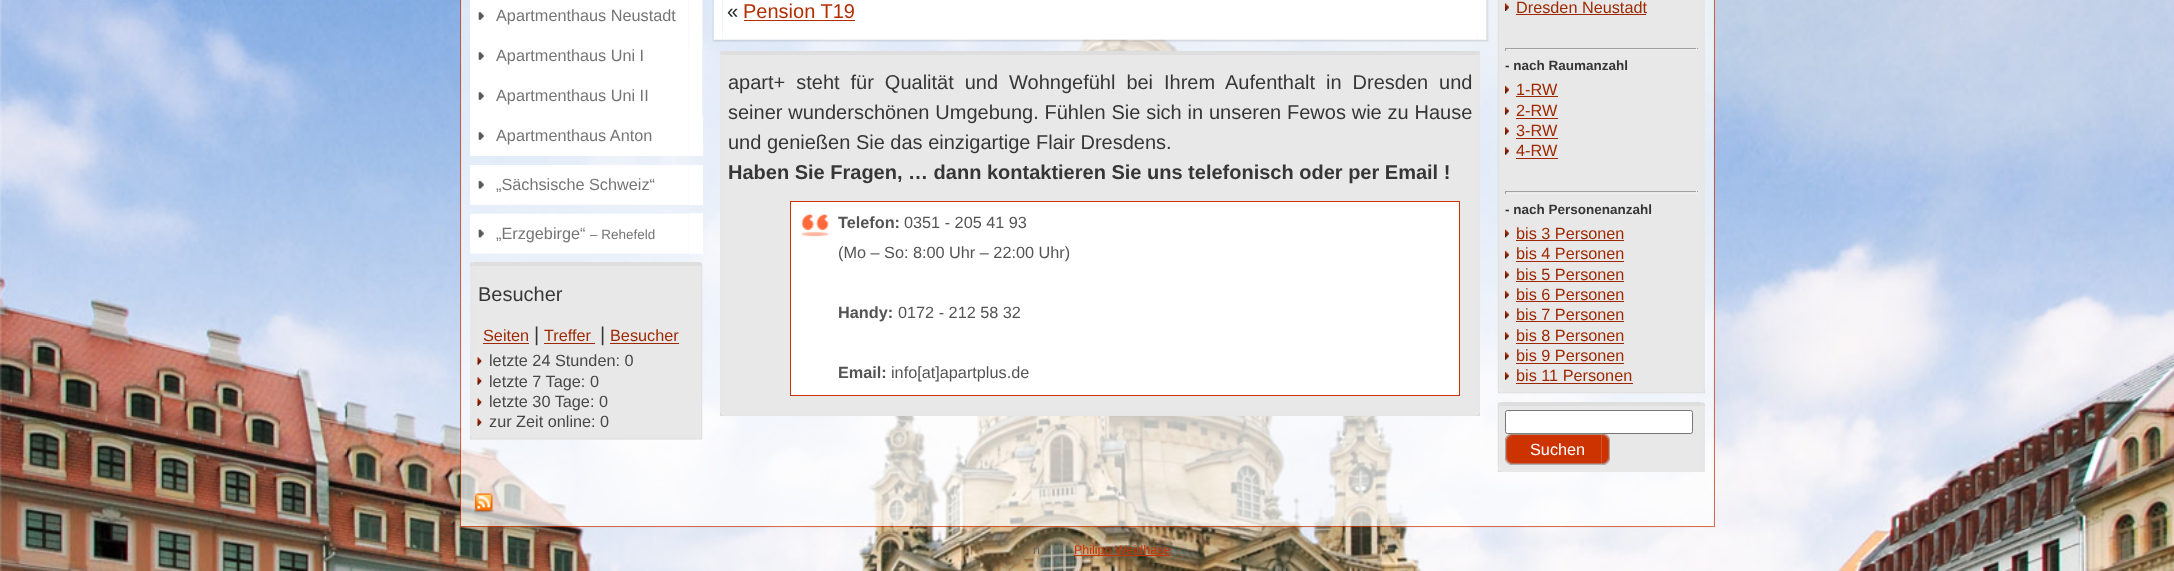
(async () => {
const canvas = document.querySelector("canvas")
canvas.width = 2174
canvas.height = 571
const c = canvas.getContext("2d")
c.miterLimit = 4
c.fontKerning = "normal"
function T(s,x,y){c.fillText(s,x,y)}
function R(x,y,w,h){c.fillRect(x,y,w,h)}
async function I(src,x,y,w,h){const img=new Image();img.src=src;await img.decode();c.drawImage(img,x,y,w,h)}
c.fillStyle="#fff"
R(0,0,2174,571)
await I("1.png",0,0,2174,571)
await I("2.png",460,0,2,526)
await I("41.png",1713,0,2,526)
c.fillStyle="#ffffffb3"
R(461,0,1253,526)
await I("3.png",470,0,219,36)
c.fillStyle="#fff"
R(689,0,13,116)
c.font="16.25px Liberation Sans"
c.fillStyle="#757575"
T("Apartmenthaus Neustadt",496,21)
await I("4.png",470,36,219,40)
T("Apartmenthaus Uni I",496,61)
await I("4.png",470,76,219,40)
T("Apartmenthaus Uni II",496,101)
await I("4.png",470,116,219,40)
c.fillStyle="#fff"
R(689,116,14,40)
c.fillStyle="#757575"
T("Apartmenthaus Anton",496,141)
c.fillStyle="#f0f0f0"
R(702,0,1,116)
c.fillStyle="#efefef"
R(473,202,216,3)
await I("5.png",470,165,219,40)
c.fillStyle="#fff"
R(689,165,14,40)
c.fillStyle="#757575"
T("„Sächsische Schweiz“",496,190)
await I("6.png",470,213,219,41)
c.fillStyle="#fff"
R(689,213,14,41)
c.fillStyle="#757575"
T("„Erzgebirge“",496,239)
c.font="13.5px Liberation Sans"
T("– Rehefeld",590,239)
await I("7.png",470,262,4,4)
c.fillStyle="#dedede"
R(474,262,225,4)
await I("8.png",699,262,4,4)
c.fillStyle="#e7e7e7"
R(470,266,4,170)
c.fillStyle="#e8e8e8"
R(474,266,225,170)
await I("9.png",699,266,4,170)
c.font="20px Liberation Sans"
c.fillStyle="#363636"
T("Besucher",478,301)
c.font="16.25px Liberation Sans"
c.fillStyle="#9d2801"
T("Seiten",483,341)
R(483,343,46,1)
c.font="20px Liberation Sans"
c.fillStyle="#363636"
T("|",534,341)
c.font="16.25px Liberation Sans"
c.fillStyle="#9d2801"
T("Treffer",544,341)
R(544,343,51,1)
c.font="20px Liberation Sans"
c.fillStyle="#363636"
T("|",600,341)
c.font="16.25px Liberation Sans"
c.fillStyle="#9d2801"
T("Besucher",610,341)
R(610,343,69,1)
await I("10.png",477,357,5,8)
c.fillStyle="#474747"
T("letzte 24 Stunden: 0",489,366)
await I("10.png",477,377,5,8)
T("letzte 7 Tage: 0",489,387)
await I("11.png",477,398,5,8)
T("letzte 30 Tage: 0",489,407)
await I("11.png",477,418,5,8)
T("zur Zeit online: 0",489,427)
await I("12.png",470,436,4,4)
await I("14.png",698,436,5,4)
await I("13.png",474,436,225,4)
await I("15.png",712,0,11,31)
c.fillStyle="#fff"
R(723,0,755,31)
await I("16.png",1478,0,11,31)
c.font="20px Liberation Sans"
c.fillStyle="#292929"
T("«",727,18)
c.fillStyle="#b22d01"
T("Pension T19",743,18)
R(744,20,111,1)
await I("17.png",712,31,11,11)
await I("19.png",1477,31,12,11)
await I("18.png",722,31,756,11)
await I("20.png",720,51,4,4)
c.fillStyle="#dedede"
R(724,51,752,4)
await I("21.png",1476,51,4,4)
c.fillStyle="#e7e7e7"
R(720,55,4,357)
c.fillStyle="#e8e8e8"
R(724,55,752,358)
c.fillStyle="#e7e7e7"
R(1476,55,4,357)
c.wordSpacing="5.4px"
c.fillStyle="#363636"
T("apart+ steht für Qualität und Wohngefühl bei Ihrem Aufenthalt in Dresden und",728,89)
c.wordSpacing="0.25px"
T("seiner wunderschönen Umgebung. Fühlen Sie sich in unseren Fewos wie zu Hause",728,119)
c.wordSpacing="0px"
T("und genießen Sie das einzigartige Flair Dresdens.",728,149)
c.font="bold 20px Liberation Sans"
T("Haben Sie Fragen, … dann kontaktieren Sie uns telefonisch oder per Email !",728,179)
c.fillStyle="#fff"
R(791,202,668,193)
await I("22.png",801,214,28,23)
c.strokeStyle="#cd3301"
c.strokeRect(790.5,201.5,669,194)
c.font="bold 16.25px Liberation Sans"
c.fillStyle="#545454"
T("Telefon:",838,228)
c.font="16.25px Liberation Sans"
T("0351 - 205 41 93",904,228)
T("(Mo – So: 8:00 Uhr – 22:00 Uhr)",838,258)
c.font="bold 16.25px Liberation Sans"
T("Handy:",838,318)
c.font="16.25px Liberation Sans"
T("0172 - 212 58 32",898,318)
c.font="bold 16.25px Liberation Sans"
T("Email:",838,378)
c.font="16.25px Liberation Sans"
T("info[at]apartplus.de",891,378)
await I("23.png",720,412,4,4)
c.fillStyle="#e7e7e7"
R(724,413,752,3)
await I("24.png",1476,412,4,4)
await I("31.png",1497,389,5,5)
await I("25.png",1497,0,4,390)
c.fillStyle="#e8e8e8"
R(1501,0,200,390)
c.fillStyle="#e7e7e7"
R(1701,0,4,390)
await I("26.png",1505,3,4,8)
c.fillStyle="#9d2801"
T("Dresden Neustadt",1516,13)
R(1516,14,130,1)
c.fillStyle="#9f9f9f"
R(1505,48,193,1)
c.fillStyle="#eee"
R(1696,48,1,3)
R(1505,49,193,1)
c.fillStyle="#9f9f9f"
R(1505,48,1,3)
c.font="bold 13.5px Liberation Sans"
c.fillStyle="#363636"
T("- nach Raumanzahl",1505,70)
await I("27.png",1505,85,4,9)
c.font="16.25px Liberation Sans"
c.fillStyle="#9d2801"
T("1-RW",1516,95)
R(1516,96,42,1)
await I("28.png",1505,107,4,8)
T("2-RW",1516,116)
R(1516,118,42,1)
await I("28.png",1505,127,4,8)
T("3-RW",1516,136)
R(1516,138,42,1)
await I("29.png",1505,147,4,8)
T("4-RW",1516,156)
R(1516,158,42,1)
c.fillStyle="#9f9f9f"
R(1505,191,193,1)
c.fillStyle="#eee"
R(1696,191,1,3)
R(1505,193,193,1)
c.fillStyle="#9f9f9f"
R(1505,191,1,3)
c.font="bold 13.5px Liberation Sans"
c.fillStyle="#363636"
T("- nach Personenanzahl",1505,214)
await I("30.png",1505,229,4,9)
c.font="16.25px Liberation Sans"
c.fillStyle="#9d2801"
T("bis 3 Personen",1516,239)
R(1516,240,108,1)
await I("27.png",1505,250,4,9)
T("bis 4 Personen",1516,259)
R(1516,261,108,1)
await I("27.png",1505,270,4,9)
T("bis 5 Personen",1516,280)
R(1516,281,108,1)
await I("27.png",1505,290,4,9)
T("bis 6 Personen",1516,300)
R(1516,301,108,1)
await I("27.png",1505,310,4,9)
T("bis 7 Personen",1516,320)
R(1516,321,108,1)
await I("28.png",1505,332,4,8)
T("bis 8 Personen",1516,341)
R(1516,343,108,1)
await I("28.png",1505,352,4,8)
T("bis 9 Personen",1516,361)
R(1516,363,108,1)
await I("28.png",1505,372,4,8)
T("bis 11 Personen",1516,381)
R(1516,383,117,1)
await I("32.png",1501,390,200,4)
await I("33.png",1701,390,4,4)
await I("34.png",1497,402,4,4)
c.fillStyle="#dedede"
R(1501,402,200,4)
await I("35.png",1701,402,4,4)
await I("36.png",1497,406,4,62)
c.fillStyle="#e8e8e8"
R(1501,406,200,66)
c.fillStyle="#e7e7e7"
R(1701,406,4,62)
c.fillStyle="#fff"
c.beginPath()
c.roundRect(1505.5,410.5,187,23,2)
c.fill()
c.strokeStyle="#767676"
c.stroke()
await I("37.png",1505,433,97,32)
await I("38.png",1601,433,9,32)
T("Suchen",1530,455)
await I("39.png",1497,468,4,4)
c.fillStyle="#e6e6e6"
R(1701,468,4,4)
await I("40.png",473,493,21,20)
await I("42.png",460,526,2,2)
await I("44.png",1713,526,2,2)
await I("43.png",461,526,1253,2)
c.font="12.5px Liberation Sans"
c.fillStyle="#666"
T("n",1033,554)
c.fillStyle="#cb3401"
R(1074,555,96,1)
T("Philipp Weidhase",1074,554)
})()
